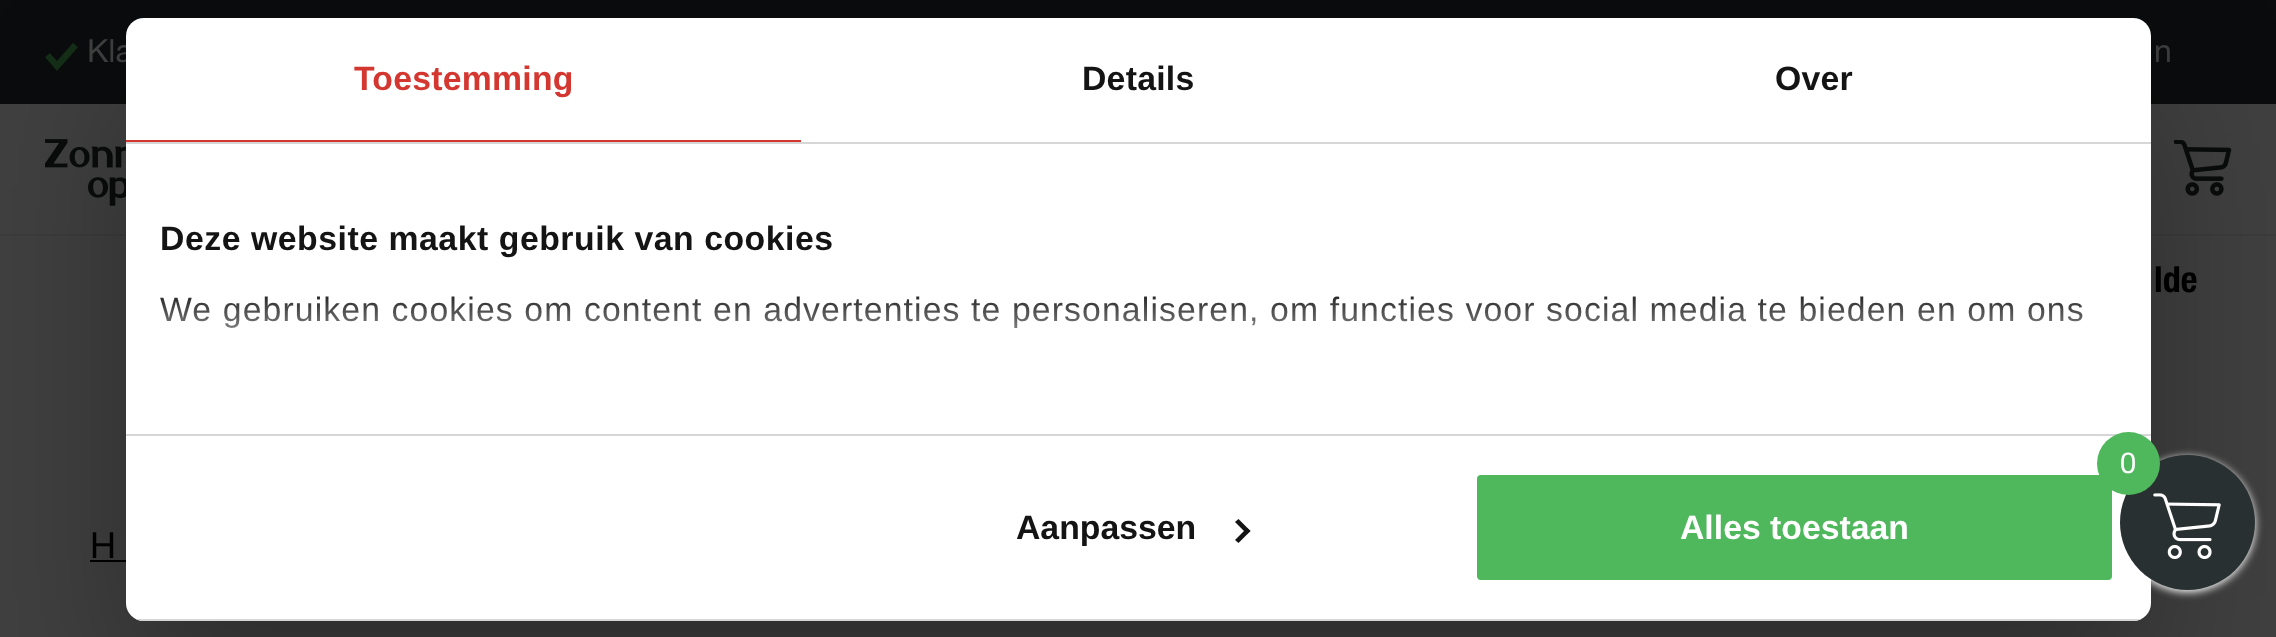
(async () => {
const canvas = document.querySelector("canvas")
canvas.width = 2276
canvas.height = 637
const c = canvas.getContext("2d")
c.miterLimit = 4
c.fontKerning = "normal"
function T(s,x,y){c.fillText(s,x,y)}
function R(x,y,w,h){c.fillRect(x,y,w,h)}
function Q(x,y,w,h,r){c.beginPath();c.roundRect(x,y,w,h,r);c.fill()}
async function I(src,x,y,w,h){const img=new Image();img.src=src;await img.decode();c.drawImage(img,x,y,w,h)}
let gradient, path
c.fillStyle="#404040"
R(0,0,2276,637)
c.fillStyle="#0a0c0d"
R(0,0,2276,104)
path = new Path2D("M47.5 55l9.5 11l18.5-21")
c.strokeStyle="#142e17"
c.lineWidth=6.5
c.stroke(path)
c.font="32px Helvetica Neue"
c.fillStyle="#404040"
T("Kla",87,62)
T("n",2154,62)
await I("1.png",45,139,81,67)
await I("2.png",2174,140,58,56)
c.fillStyle="#3b3c3c"
R(0,234,2276,2)
c.font="bold 36px Helvetica Neue"
c.fillStyle="#000"
T("lde",2154,292)
R(90,560,36,2)
c.fillStyle="#0000004d"
c.filter="blur(76.5px)"
c.beginPath()
c.roundRect(126,90,2025,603,18)
c.fill()
c.filter="none"
c.fillStyle="#fff"
Q(126,18,2025,603,18)
c.fillStyle="#d6d6d6"
R(126,142,2025,2)
c.fillStyle="#d43630"
R(126,140,675,2)
c.letterSpacing="0.25px"
c.font="bold 33.75px Liberation Sans"
T("Toestemming",354,90)
c.fillStyle="#141414"
T("Details",1082,90)
T("Over",1775,90)
c.fillStyle="#d6d6d6"
R(126,434,2025,2)
c.letterSpacing="0.55px"
c.fillStyle="#141414"
T("Deze website maakt gebruik van cookies",160,250)
c.letterSpacing="1.12px"
c.font="33.75px Liberation Sans"
T("We gebruiken cookies om content en advertenties te personaliseren, om functies voor social media te bieden en om ons",160,321)
gradient = c.createLinearGradient(1124,434,1124,288)
gradient.addColorStop(0,"#fff")
gradient.addColorStop(.5,"#ffffffcc")
gradient.addColorStop(1,"#ffffff00")
c.fillStyle = gradient
R(160,296,1923,32)
c.save()
c.beginPath()
c.roundRect(126,18,2025,603,18)
c.clip()
c.fillStyle="#d6d6d6"
R(136,619,2005,2)
c.restore()
c.letterSpacing="0px"
c.font="bold 33.75px Liberation Sans"
c.fillStyle="#141414"
T("Aanpassen",1016,539)
path = new Path2D("M1238.5 519l12 12l-3.5 3l-12-12z")
c.fill(path)
path = new Path2D("M1247 528l3.5 3l-12 12l-3.5-3z")
c.fill(path)
c.fillStyle="#4fb75c"
c.beginPath()
c.roundRect(1474.5,472.5,640,110,6.5)
c.fill()
c.strokeStyle="#fff"
c.lineWidth=5
c.stroke()
c.fillStyle="#fff"
T("Alles toestaan",1680,539)
c.filter="blur(4.5px)"
c.beginPath()
c.roundRect(2120,457,135,135,67.5)
c.fill()
c.filter="none"
c.fillStyle="#293032"
c.beginPath()
c.arc(2187.5,522.5,67.5,0,7)
c.fill()
c.fillStyle="#4fb75c"
c.beginPath()
c.arc(2128.5,463.5,31.5,0,7)
c.fill()
c.font="29px Helvetica Neue"
c.fillStyle="#fff"
T("0",2120,473)
await I("3.png",2153,493,68,66)
c.font="36px Helvetica Neue"
c.fillStyle="#000"
T("H",90,558)
})()
